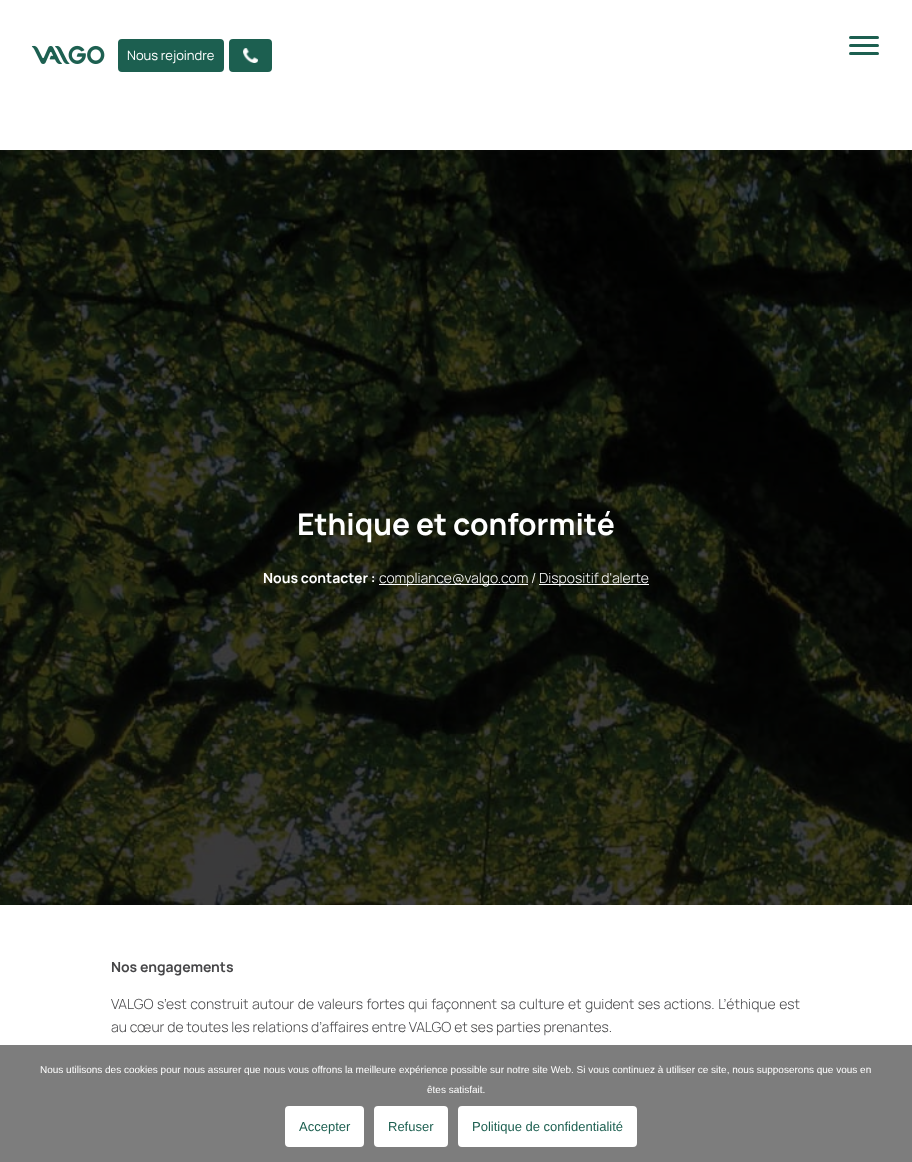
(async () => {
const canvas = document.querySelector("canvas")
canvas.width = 912
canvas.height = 1162
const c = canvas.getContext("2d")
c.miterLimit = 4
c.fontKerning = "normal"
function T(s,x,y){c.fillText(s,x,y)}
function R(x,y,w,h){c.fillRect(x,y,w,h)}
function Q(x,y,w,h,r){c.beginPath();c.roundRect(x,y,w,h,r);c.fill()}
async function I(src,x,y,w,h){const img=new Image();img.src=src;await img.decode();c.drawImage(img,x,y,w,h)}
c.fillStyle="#fff"
R(0,0,912,1162)
c.fillStyle="#1c5f50"
Q(849,36,30,3,1.5)
Q(849,44,30,3,1.5)
Q(849,52,30,3,1.5)
await I("1.png",31,45,74,20)
c.beginPath()
c.roundRect(119,40,104,31,3)
c.fill()
c.strokeStyle="#1c5f50"
c.lineWidth=2
c.stroke()
c.font="13px Manrope"
c.fillStyle="#fff"
T("Nous rejoindre",127,60)
c.fillStyle="#1c5f50"
c.beginPath()
c.roundRect(230,40,41,31,3)
c.fill()
c.stroke()
await I("2.png",243,48,15,15)
await I("3.png",0,150,912,755)
c.font="bold 30px Manrope"
c.fillStyle="#fff"
T("Ethique et conformité",297,535)
c.font="bold 14px Manrope"
T("Nous contacter :",263,583)
R(379,584,149,1)
c.font="300 14px Manrope"
T("compliance@valgo.com /",379,583)
R(539,584,110,1)
T("Dispositif d'alerte",539,583)
c.font="bold 14px Manrope"
c.fillStyle="#464648"
T("Nos engagements",111,972)
c.wordSpacing="0.75px"
c.font="300 14px Manrope"
T("VALGO s’est construit autour de valeurs fortes qui façonnent sa culture et guident ses actions. L’éthique est",111,1009)
c.wordSpacing="0px"
T("au cœur de toutes les relations d’affaires entre VALGO et ses parties prenantes.",111,1032)
c.fillStyle="#7d7d7d"
R(0,1045,912,117)
c.font="10px Liberation Sans"
c.fillStyle="#fff"
T("Nous utilisons des cookies pour nous assurer que nous vous offrons la meilleure expérience possible sur notre site Web. Si vous continuez à utiliser ce site, nous supposerons que vous en",40,1073)
T("êtes satisfait.",427,1093)
c.beginPath()
c.roundRect(286,1107,77,39,3)
c.fill()
c.strokeStyle="#fff"
c.stroke()
c.font="13px Liberation Sans"
c.fillStyle="#1c5f50"
T("Accepter",299,1131)
c.fillStyle="#fff"
c.beginPath()
c.roundRect(375,1107,72,39,3)
c.fill()
c.stroke()
c.fillStyle="#1c5f50"
T("Refuser",388,1131)
c.fillStyle="#fff"
c.beginPath()
c.roundRect(459,1107,177,39,3)
c.fill()
c.stroke()
c.fillStyle="#1c5f50"
T("Politique de confidentialité",472,1131)
})()
